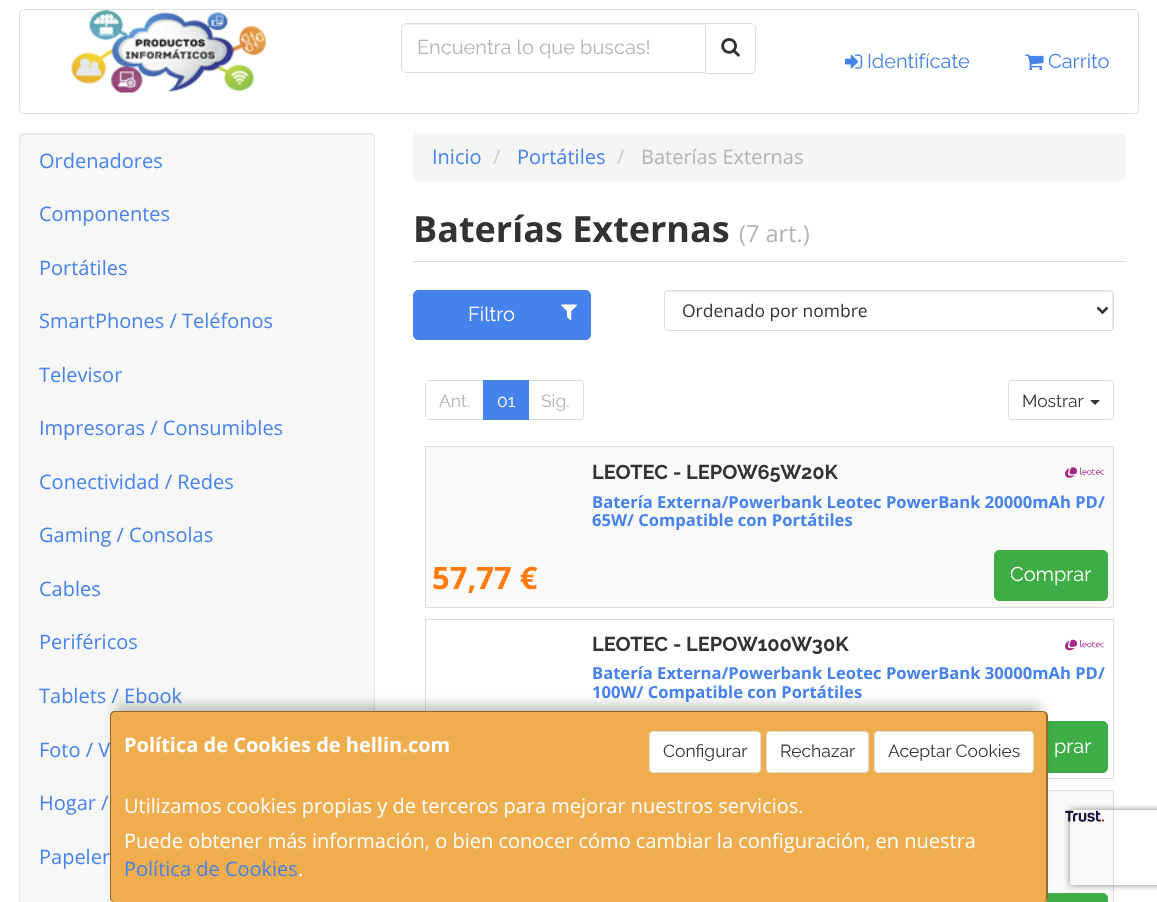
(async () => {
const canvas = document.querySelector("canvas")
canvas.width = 1157
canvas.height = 902
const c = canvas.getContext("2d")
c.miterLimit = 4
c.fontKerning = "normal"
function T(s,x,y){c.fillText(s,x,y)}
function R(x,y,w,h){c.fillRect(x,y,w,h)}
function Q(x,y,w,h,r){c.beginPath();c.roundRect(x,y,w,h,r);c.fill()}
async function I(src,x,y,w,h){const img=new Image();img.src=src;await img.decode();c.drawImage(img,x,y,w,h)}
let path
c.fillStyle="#fff"
R(0,0,1157,902)
c.beginPath()
c.roundRect(19.5,9.5,1119,104,4.5)
c.strokeStyle="#ddd"
c.stroke()
await I("1.png",71,10,196,83)
c.beginPath()
c.roundRect(705.5,23.5,50,50,[0,4.5,4.5,0])
c.stroke()
c.beginPath()
c.roundRect(401,23,305,50,[5,0,0,5])
c.fill()
c.fillStyle="#ececec"
path = new Path2D("M406 25h299v-1h-298c-1 0-3 1-3 2z")
c.fill(path)
c.beginPath()
c.roundRect(401.5,23.5,304,49,[4.5,0,0,4.5])
c.stroke()
c.font="20px Raleway"
c.fillStyle="#b3b3b3"
T("Encuentra lo que buscas!",417,54)
await I("2.png",721,38,19,19)
await I("3.png",845,54,18,15)
c.fillStyle="#4582ec"
T("Identifícate",867,68)
await I("4.png",1025,54,19,17)
T("Carrito",1048,68)
c.fillStyle="#f7f7f7"
Q(19,133,356,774,5)
c.fillStyle="#ebebeb"
path = new Path2D("M24 135h346c2 0 4 2 4 4c0-3-1-5-4-5h-347l-2 2l-1 3c0-2 2-4 4-4z")
c.fill(path)
c.beginPath()
c.roundRect(19.5,133.5,355,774,4.5)
c.strokeStyle="#e5e5e5"
c.stroke()
c.font="20px Open Sans"
c.fillStyle="#4582ec"
T("Ordenadores",39,168)
T("Componentes",39,221)
T("Portátiles",39,275)
T("SmartPhones / Teléfonos",39,328)
T("Televisor",39,382)
T("Impresoras / Consumibles",39,435)
T("Conectividad / Redes",39,489)
T("Gaming / Consolas",39,542)
T("Cables",39,596)
T("Periféricos",39,649)
T("Tablets / Ebook",39,703)
T("Foto / V",39,757)
T("Hogar /",39,810)
T("Papeler",39,864)
c.fillStyle="#f5f5f5"
Q(413,133,713,48,5)
c.fillStyle="#4582ec"
T("Inicio",432,164)
c.fillStyle="#ccc"
T("/",493,164)
c.fillStyle="#4582ec"
T("Portátiles",517,164)
c.fillStyle="#ccc"
T("/",617,164)
c.fillStyle="#b3b3b3"
T("Baterías Externas",641,164)
c.fillStyle="#ddd"
R(413,261,713,1)
c.font="bold 36px Open Sans"
c.fillStyle="#333"
T("Baterías Externas",413,242)
c.font="23.5px Open Sans"
c.fillStyle="#b3b3b3"
T("(7 art.)",739,242)
c.fillStyle="#4582ec"
c.beginPath()
c.roundRect(413.5,290.5,177,49,4.5)
c.fill()
c.strokeStyle="#4582ec"
c.stroke()
c.font="20px Raleway"
c.fillStyle="#fff"
T("Filtro",468,321)
await I("5.png",561,304,16,17)
c.fillStyle="#ececec"
path = new Path2D("M668 292h442c3 0 2 13 2 14v24c1-1 1-2 1-2v-34c0-2-1-3-3-3h-442c-2 0-3 1-3 3v1c0-1 1-3 3-3z")
c.fill(path)
c.beginPath()
c.roundRect(664.5,290.5,449,40,3.5)
c.strokeStyle="#ddd"
c.stroke()
path = new Path2D("M1097.5 307.5l5 5l5-5")
c.strokeStyle="#333"
c.lineWidth=2.5
c.stroke(path)
c.font="17.5px Open Sans"
c.fillStyle="#333"
T("Ordenado por nombre",682,317)
c.beginPath()
c.roundRect(425.5,380.5,58,39,[3.5,0,0,3.5])
c.strokeStyle="#ddd"
c.lineWidth=1
c.stroke()
c.font="17.5px Raleway"
c.fillStyle="#b3b3b3"
T("Ant.",439,407)
c.beginPath()
c.roundRect(528.5,380.5,55,39,[0,3.5,3.5,0])
c.stroke()
c.fillStyle="#4582ec"
R(483,380,46,40)
c.fillStyle="#fff"
T("01",497,407)
c.fillStyle="#b3b3b3"
T("Sig.",541,407)
c.beginPath()
c.roundRect(1008.5,380.5,105,39,3.5)
c.stroke()
c.fillStyle="#333"
T("Mostrar",1022,407)
path = new Path2D("M1090 400h10l-5 5z")
c.fill(path)
c.fillStyle="#f9f9f9"
c.beginPath()
c.roundRect(425,446,689,162,[5,5,0,0])
c.fill()
c.strokeRect(425.5,446.5,688,161)
c.font="bold 20px Raleway"
c.fillStyle="#333"
T("LEOTEC - LEPOW65W20K",592,479)
c.font="bold 16.6px Open Sans"
c.fillStyle="#4582ec"
T("Batería Externa/Powerbank Leotec PowerBank 20000mAh PD/",592,508)
T("65W/ Compatible con Portátiles",592,526)
c.font="bold 31px Open Sans"
c.fillStyle="#ff7b0d"
T("57,77 €",432,589)
c.fillStyle="#3fad46"
c.beginPath()
c.roundRect(994.5,550.5,113,50,4.5)
c.fill()
c.strokeStyle="#3fad46"
c.stroke()
c.font="20px Raleway"
c.fillStyle="#fff"
T("Comprar",1010,581)
await I("6.png",1065,467,39,11)
c.strokeStyle="#ddd"
c.strokeRect(425.5,619.5,688,159)
c.font="bold 20px Raleway"
c.fillStyle="#333"
T("LEOTEC - LEPOW100W30K",592,651)
c.font="bold 16.6px Open Sans"
c.fillStyle="#4582ec"
T("Batería Externa/Powerbank Leotec PowerBank 30000mAh PD/",592,679)
T("100W/ Compatible con Portátiles",592,698)
c.fillStyle="#3fad46"
c.beginPath()
c.roundRect(994.5,721.5,113,51,4.5)
c.fill()
c.strokeStyle="#3fad46"
c.stroke()
c.font="20px Raleway"
c.fillStyle="#fff"
T("prar",1054,753)
await I("7.png",1065,639,39,12)
c.fillStyle="#f9f9f9"
R(1048,791,65,111)
c.strokeStyle="#ddd"
c.strokeRect(425.5,790.5,688,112)
c.fillStyle="#3fad46"
c.beginPath()
c.roundRect(994.5,893.5,113,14,4.5)
c.fill()
c.strokeStyle="#3fad46"
c.stroke()
c.save()
path = new Path2D("M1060 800h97v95h-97zm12.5 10h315c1.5 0 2.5 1 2.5 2.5v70c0 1.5-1 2.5-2.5 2.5h-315c-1.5 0-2.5-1-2.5-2.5v-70c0-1.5 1-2.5 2.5-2.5z")
c.clip(path,"evenodd")
c.fillStyle="#808080"
c.filter="blur(3px)"
c.beginPath()
c.roundRect(1070,810,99,75,2.5)
c.fill()
c.filter="none"
c.restore()
await I("8.png",1065,810,39,12)
c.fillStyle="#00000040"
c.filter="blur(6px)"
c.beginPath()
c.rect(116,705,925,179)
c.fill()
c.filter="none"
c.fillStyle="#f0ad4e"
Q(110,711,938,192,5)
c.fillStyle="#00000066"
path = new Path2D("M115 711h927c3 0 6 2 6 5v182c0 2-3 4-6 4h-927c-3 0-5-2-5-4v-182c0-3 2-5 5-5zm0 1h927c3 0 4 2 4 4v182c0 2-1 4-4 4h-927c-2 0-4-2-4-4v-182c0-2 2-4 4-4z")
c.fill(path,"evenodd")
c.font="bold 20px Open Sans"
c.fillStyle="#fff"
T("Política de Cookies de hellin.com",124,752)
c.beginPath()
c.roundRect(649.5,731.5,111,41,3.5)
c.fill()
c.strokeStyle="#ddd"
c.stroke()
c.font="17.5px Raleway"
c.fillStyle="#333"
T("Configurar",663,757)
c.fillStyle="#fff"
c.beginPath()
c.roundRect(766.5,731.5,102,41,3.5)
c.fill()
c.stroke()
c.fillStyle="#333"
T("Rechazar",780,757)
c.fillStyle="#fff"
c.beginPath()
c.roundRect(874.5,731.5,159,41,3.5)
c.fill()
c.stroke()
c.fillStyle="#333"
T("Aceptar Cookies",888,757)
c.font="20px Open Sans"
c.fillStyle="#fff"
T("Utilizamos cookies propias y de terceros para mejorar nuestros servicios.",124,813)
T("Puede obtener más información, o bien conocer cómo cambiar la configuración, en nuestra",124,848)
c.fillStyle="#4582ec"
T("Política de Cookies",124,876)
c.fillStyle="#fff"
T(".",298,876)
})()
